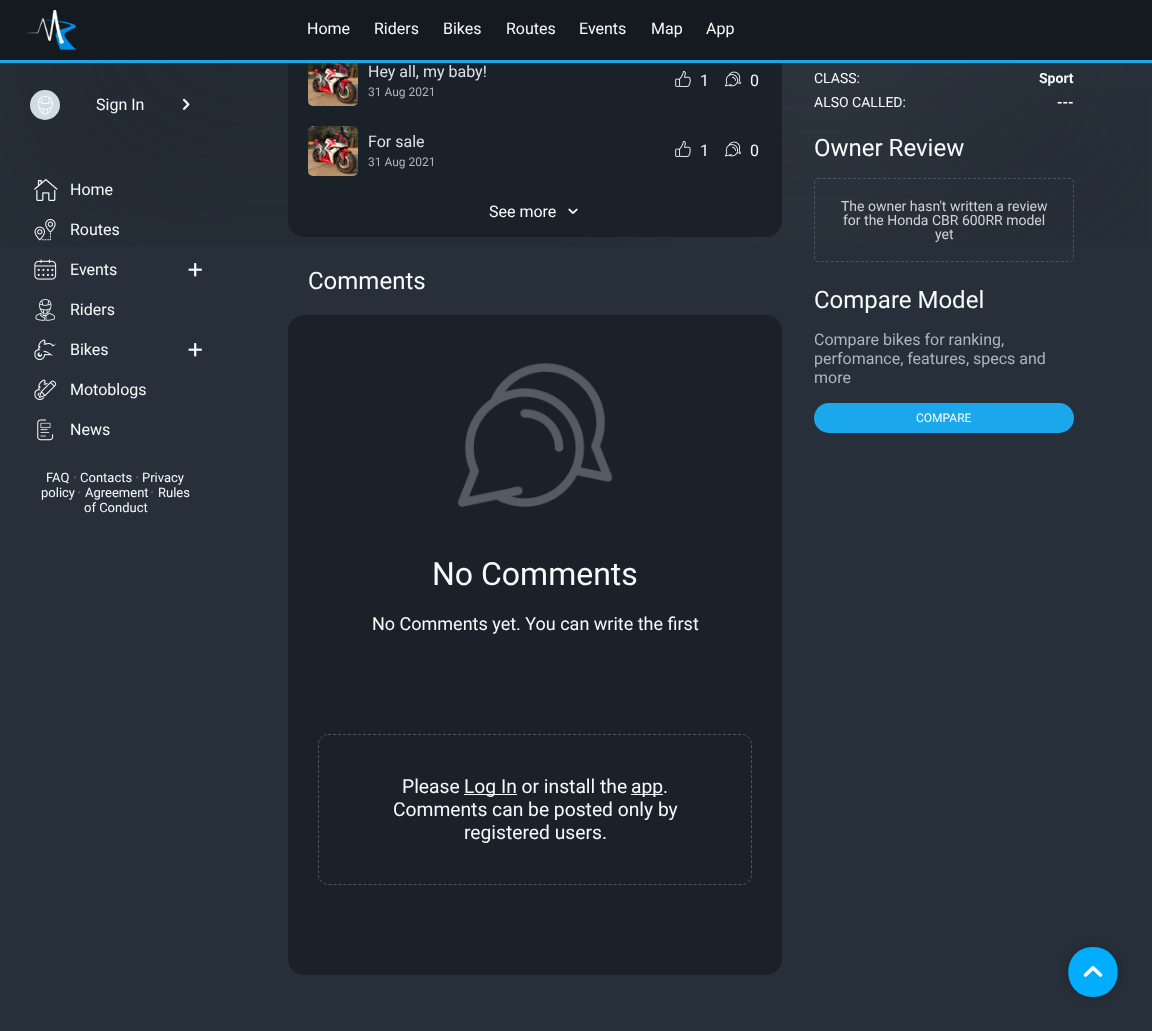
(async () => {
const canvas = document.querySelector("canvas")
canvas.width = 1152
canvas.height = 1031
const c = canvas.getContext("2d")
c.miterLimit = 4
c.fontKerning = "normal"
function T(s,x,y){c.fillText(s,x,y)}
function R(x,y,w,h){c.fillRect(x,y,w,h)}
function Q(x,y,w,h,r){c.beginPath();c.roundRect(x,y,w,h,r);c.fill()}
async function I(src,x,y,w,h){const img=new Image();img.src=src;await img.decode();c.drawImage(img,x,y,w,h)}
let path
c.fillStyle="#27303a"
R(0,0,1152,1031)
await I("18.png",0,63,1150,183)
c.fillStyle="#1b2129"
Q(288,-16,494,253,16)
c.fillStyle="#1aa7ec"
R(0,60,1152,3)
c.fillStyle="#151a20"
R(0,0,1152,60)
await I("1.png",26,10,50,40)
c.font="16px Roboto"
c.fillStyle="#f8f9fa"
T("Home",307,34)
T("Riders",374,34)
T("Bikes",443,34)
T("Routes",506,34)
T("Events",579,34)
T("Map",651,34)
T("App",706,34)
await I("2.png",30,90,30,30)
T("Sign In",96,110)
await I("3.png",182,98,8,12)
await I("4.png",34,179,24,22)
T("Home",70,195)
await I("5.png",34,219,22,22)
T("Routes",70,235)
await I("6.png",34,259,23,21)
T("Events",70,275)
await I("7.png",188,263,14,14)
await I("8.png",35,299,20,22)
T("Riders",70,315)
await I("9.png",34,339,22,21)
T("Bikes",70,355)
await I("7.png",188,343,14,14)
await I("10.png",34,379,23,21)
T("Motoblogs",70,395)
await I("11.png",37,419,17,22)
T("News",70,435)
c.font="13px Roboto"
T("FAQ",46,482)
c.fillStyle="#495057"
T("•",73,482)
c.fillStyle="#f8f9fa"
T("Contacts",80,482)
c.fillStyle="#495057"
T("•",135,482)
c.fillStyle="#f8f9fa"
T("Privacy",142,482)
T("policy",41,497)
c.fillStyle="#495057"
T("•",77,497)
c.fillStyle="#f8f9fa"
T("Agreement",85,497)
c.fillStyle="#495057"
T("•",150,497)
c.fillStyle="#f8f9fa"
T("Rules",158,497)
T("of Conduct",84,512)
await I("12.png",308,63,50,43)
c.font="16px Roboto"
c.fillStyle="#dee2e6"
T("Hey all, my baby!",368,77)
c.font="12px Roboto"
c.fillStyle="#adb5bd"
T("31 Aug 2021",368,96)
await I("13.png",675,71,16,16)
c.font="16px Roboto"
c.fillStyle="#f8f9fa"
T("1",700,86)
await I("14.png",725,71,16,16)
T("0",750,86)
await I("15.png",308,126,50,50)
c.fillStyle="#dee2e6"
T("For sale",368,147)
c.font="12px Roboto"
c.fillStyle="#adb5bd"
T("31 Aug 2021",368,166)
await I("13.png",675,141,16,16)
c.font="16px Roboto"
c.fillStyle="#f8f9fa"
T("1",700,156)
await I("14.png",725,141,16,16)
T("0",750,156)
T("See more",489,217)
await I("16.png",568,208,10,6)
c.font="24px Roboto"
T("Comments",308,289)
c.fillStyle="#1b2129"
Q(288,315,494,660,16)
await I("17.png",457,363,156,145)
c.font="32px Roboto"
c.fillStyle="#f8f9fa"
T("No Comments",432,585)
c.font="18px Roboto"
T("No Comments yet. You can write the first",372,630)
path = new Path2D("M328 734.5h414c5 0 9.5 4.5 9.5 9.5v131c0 5-4.5 9.5-9.5 9.5h-414c-5 0-9.5-4.5-9.5-9.5v-131c0-5 4.5-9.5 9.5-9.5z")
c.strokeStyle="#545454"
c.setLineDash([3,2])
c.stroke(path)
c.font="19.25px Roboto"
T("Please",402,793)
R(464,794,53,1)
T("Log In or install the",464,793)
R(631,794,32,1)
T("app.",631,793)
T("Comments can be posted only by",393,816)
T("registered users.",464,839)
c.font="14px Roboto"
T("CLASS:",814,83)
c.font="bold 14px Roboto"
T("Sport",1039,83)
c.font="14px Roboto"
T("ALSO CALLED:",814,107)
c.font="bold 14px Roboto"
T("---",1057,107)
c.font="24px Roboto"
T("Owner Review",814,156)
path = new Path2D("M818 178.5h252c2 0 3.5 1.5 3.5 3.5v76c0 2-1.5 3.5-3.5 3.5h-252c-2 0-3.5-1.5-3.5-3.5v-76c0-2 1.5-3.5 3.5-3.5z")
c.strokeStyle="#475463"
c.stroke(path)
c.font="14px Roboto"
c.fillStyle="#ced4da"
T("The owner hasn't written a review",841,211)
T("for the Honda CBR 600RR model",843,225)
T("yet",935,239)
c.font="24px Roboto"
c.fillStyle="#f8f9fa"
T("Compare Model",814,308)
c.font="16px Roboto"
c.fillStyle="#adb5bd"
T("Compare bikes for ranking,",814,345)
T("perfomance, features, specs and",814,364)
T("more",814,383)
c.fillStyle="#1aa7ec"
Q(814,403,260,30,15)
c.font="12px Roboto"
c.fillStyle="#fff"
T("COMPARE",916,422)
c.fillStyle="#00000042"
c.filter="blur(5.5px)"
c.beginPath()
c.roundRect(1068,947,50,50,25)
c.fill()
c.filter="none"
c.fillStyle="#00adff"
path = new Path2D("M1093 997c-33 0-33-50 0-50c33 0 33 50 0 50z")
c.fill(path)
await I("19.png",1083,966,20,11)
})()
